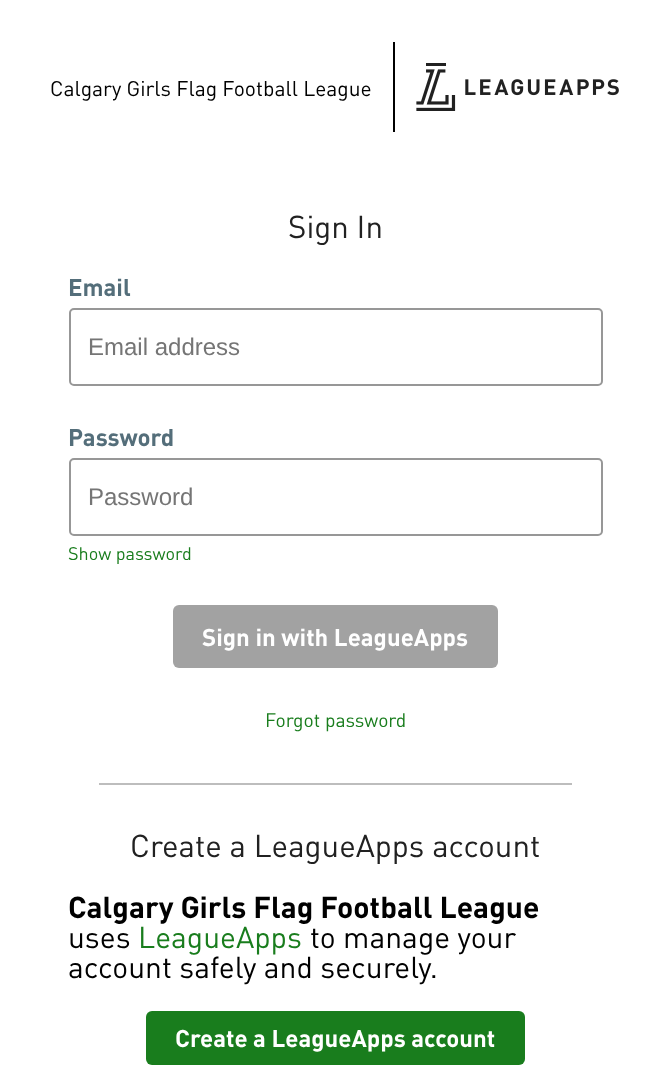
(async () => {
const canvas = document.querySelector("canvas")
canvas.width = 670
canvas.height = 1077
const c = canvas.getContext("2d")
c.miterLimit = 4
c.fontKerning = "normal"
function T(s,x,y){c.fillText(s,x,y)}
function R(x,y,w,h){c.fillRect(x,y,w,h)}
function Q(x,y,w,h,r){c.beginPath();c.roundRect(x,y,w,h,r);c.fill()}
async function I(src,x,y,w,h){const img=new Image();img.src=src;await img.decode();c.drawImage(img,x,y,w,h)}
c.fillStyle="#fff"
R(0,0,670,1077)
c.fillStyle="#000"
R(393,42,2,90)
c.font="21px DIN"
T("Calgary Girls Flag Football League",50,96)
await I("1.png",416,63,203,48)
c.font="31.25px DIN"
c.fillStyle="#212121"
T("Sign In",288,238)
c.font="bold 24px DIN"
c.fillStyle="#546e7a"
T("Email",68,296)
c.beginPath()
c.roundRect(70,309,532,76,4)
c.strokeStyle="#979797"
c.lineWidth=2
c.stroke()
c.font="24px Liberation Sans"
c.fillStyle="#757575"
T("Email address",88,355)
c.font="bold 24px DIN"
c.fillStyle="#546e7a"
T("Password",68,446)
c.beginPath()
c.roundRect(70,459,532,76,4)
c.stroke()
c.font="24px Liberation Sans"
c.fillStyle="#757575"
T("Password",88,505)
c.font="18px DIN"
c.fillStyle="#197d1d"
T("Show password",68,560)
c.fillStyle="#a2a2a2"
Q(173,605,325,63,6)
c.font="bold 24px DIN"
c.fillStyle="#fff"
T("Sign in with LeagueApps",202,646)
c.font="19.25px DIN"
c.fillStyle="#197d1d"
T("Forgot password",265,727)
c.fillStyle="#bdbdbd"
R(99,783,473,2)
c.font="31.25px DIN"
c.fillStyle="#212121"
T("Create a LeagueApps account",130,857)
c.font="bold 30px DIN"
c.fillStyle="#000"
T("Calgary Girls Flag Football League",68,918)
c.font="30px DIN"
T("uses",68,948)
c.fillStyle="#197d1d"
T("LeagueApps",138,948)
c.fillStyle="#000"
T("to manage your",310,948)
T("account safely and securely.",68,978)
c.fillStyle="#197d1d"
Q(146,1011,379,54,6)
c.font="bold 24px DIN"
c.fillStyle="#fff"
T("Create a LeagueApps account",175,1047)
})()
